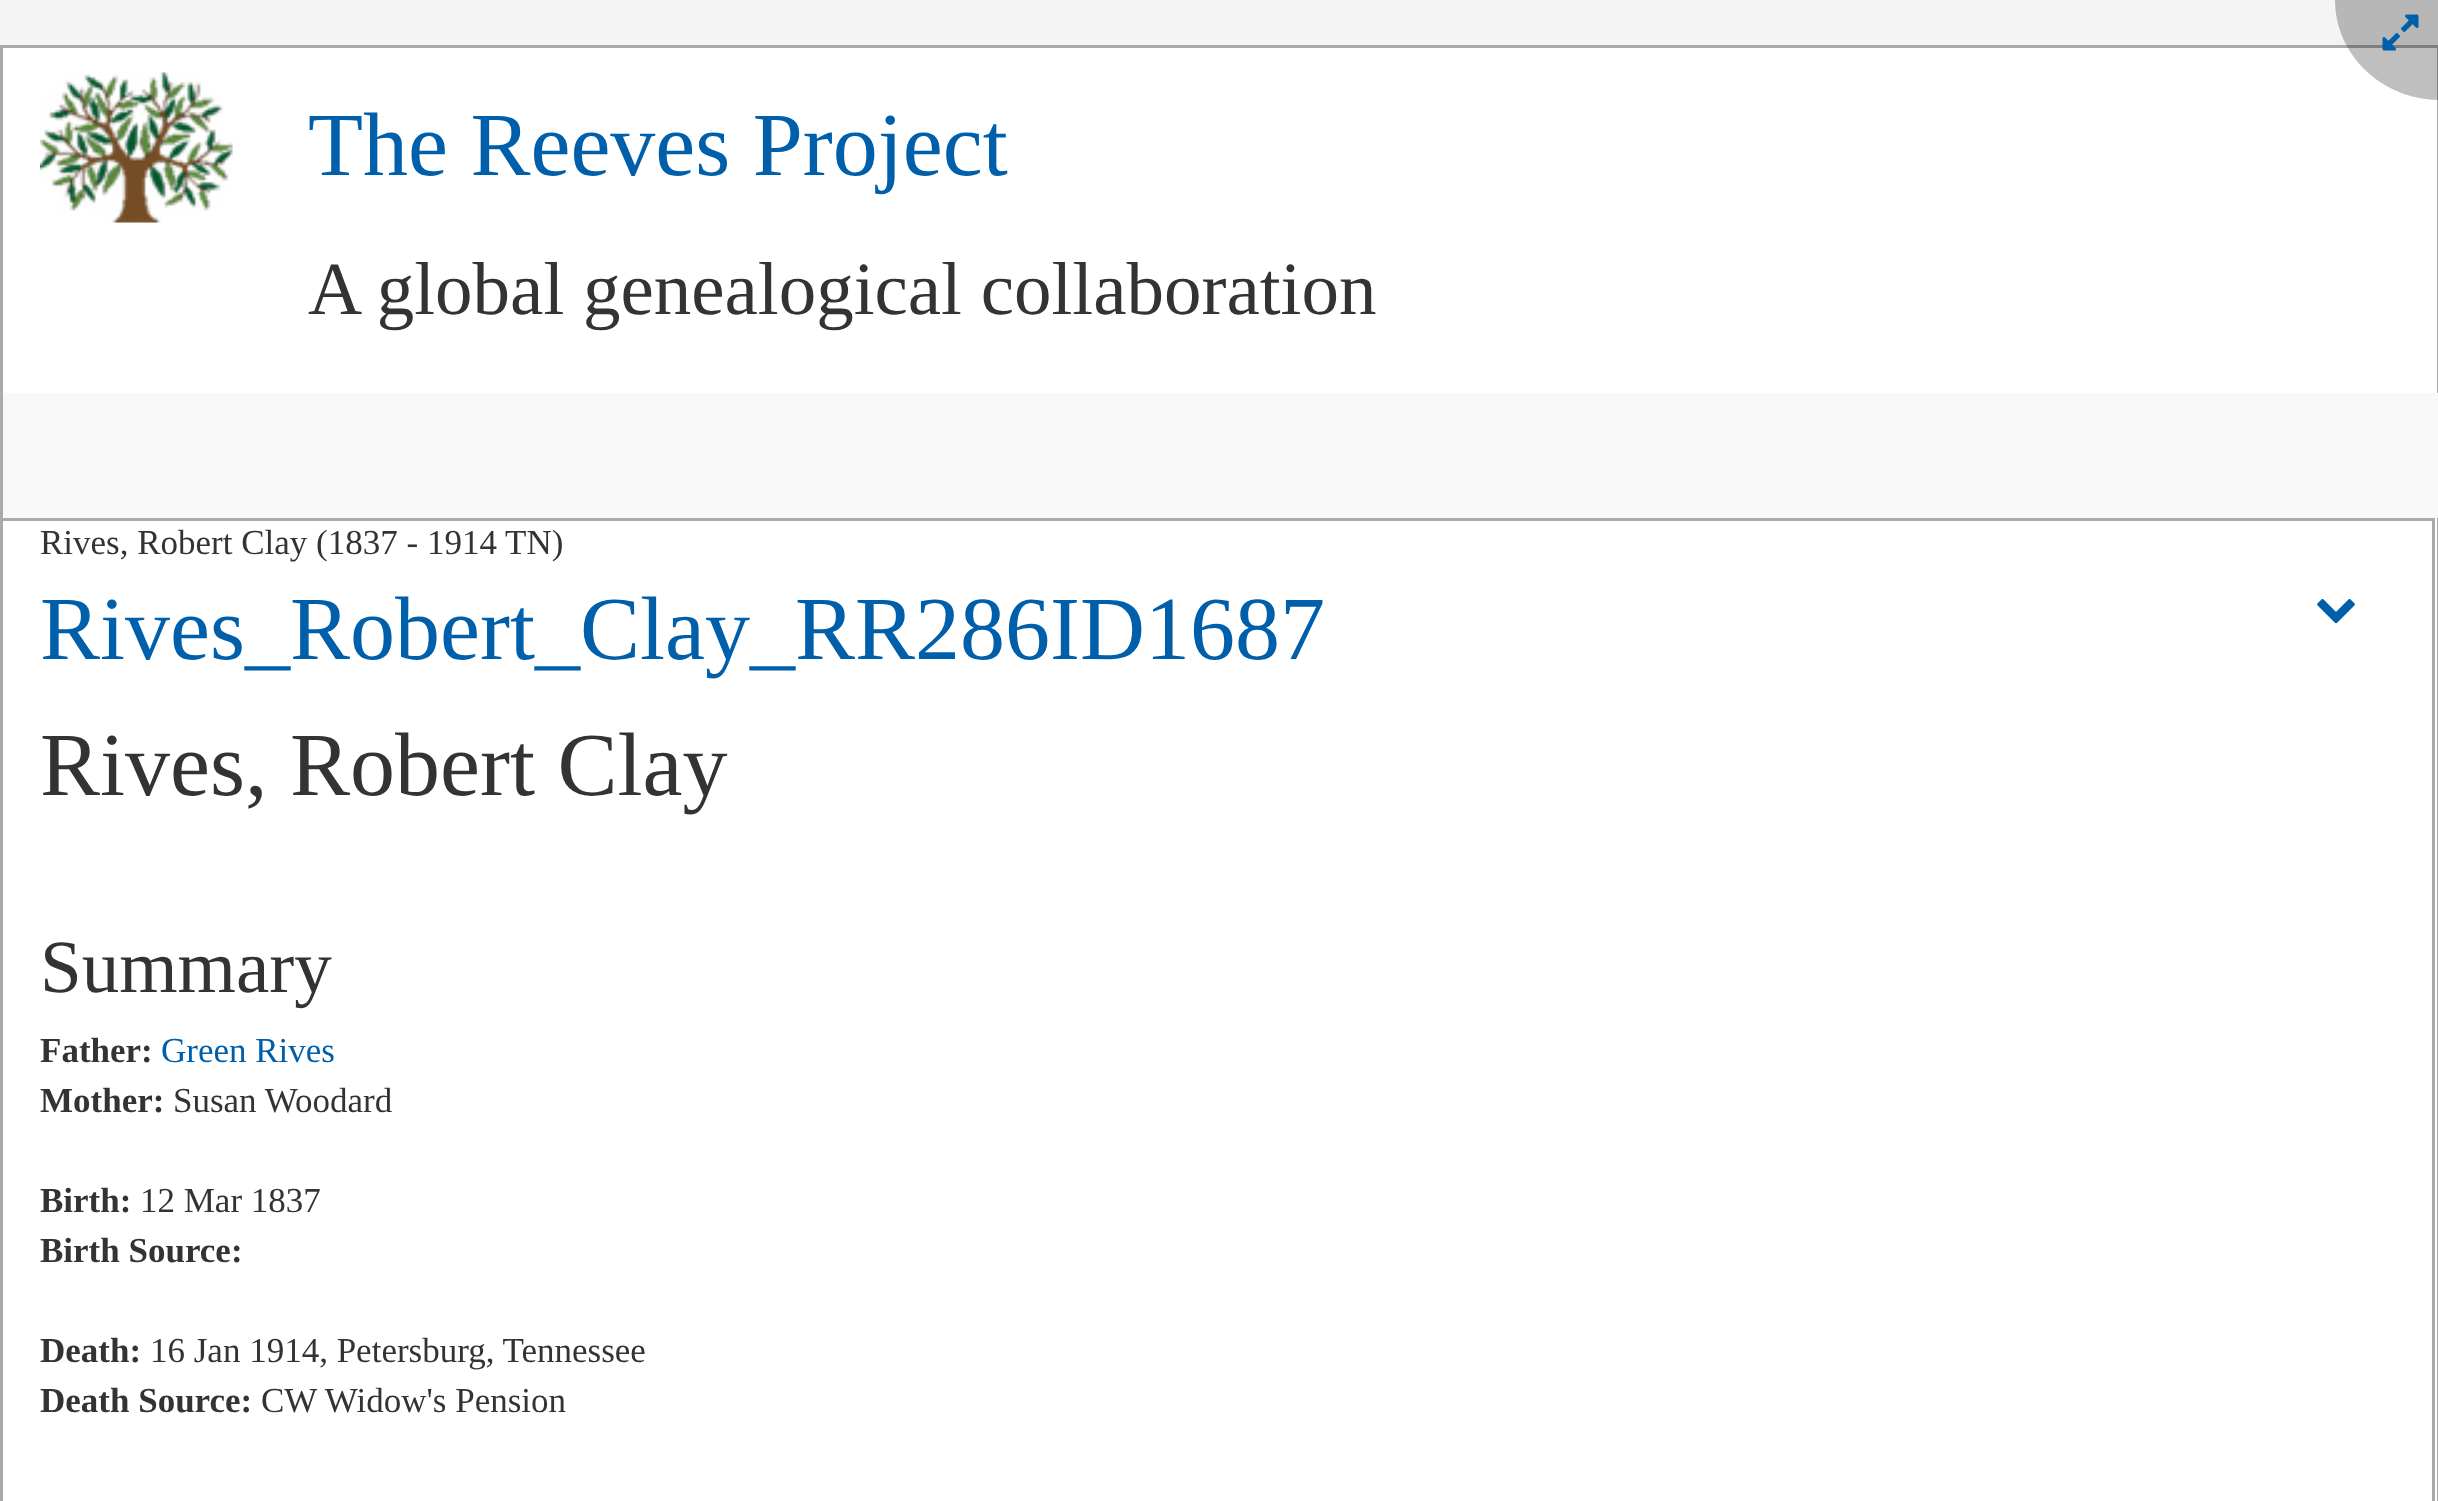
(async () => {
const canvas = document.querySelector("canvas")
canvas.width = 2438
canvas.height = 1501
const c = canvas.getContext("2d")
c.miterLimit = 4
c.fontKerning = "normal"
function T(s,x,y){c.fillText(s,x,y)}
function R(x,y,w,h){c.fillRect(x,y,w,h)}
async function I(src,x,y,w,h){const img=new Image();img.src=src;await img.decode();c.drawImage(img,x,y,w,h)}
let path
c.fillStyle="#f4f4f4"
R(0,0,2438,1501)
c.fillStyle="#fff"
c.beginPath()
c.rect(1.5,46.5,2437,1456)
c.fill()
c.strokeStyle="#aaa"
c.lineWidth=3
c.stroke()
c.fillStyle="#00000040"
path = new Path2D("M2335 0h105v100c-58 0-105-45-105-100z")
c.fill(path)
await I("1.png",2382,14,37,37)
await I("2.png",40,72,193,151)
c.font="90px Liberation Serif"
c.fillStyle="#005faa"
T("The Reeves Project",308,175)
c.font="75px Liberation Serif"
c.fillStyle="#333"
T("A global genealogical collaboration",308,314)
c.fillStyle="#f8f8f8"
R(3,393,2435,125)
c.strokeRect(1.5,519.5,2432,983)
c.font="35px Liberation Serif"
c.fillStyle="#333"
T("Rives, Robert Clay (1837 - 1914 TN)",40,554)
c.font="90px Liberation Serif"
c.fillStyle="#005faa"
T("Rives_Robert_Clay_RR286ID1687",40,659)
await I("3.png",2317,599,38,25)
c.fillStyle="#333"
T("Rives, Robert Clay",40,795)
c.font="75px Liberation Serif"
T("Summary",40,992)
c.font="bold 35px Liberation Serif"
T("Father:",40,1062)
c.font="35px Liberation Serif"
c.fillStyle="#005faa"
T("Green Rives",161,1062)
c.font="bold 35px Liberation Serif"
c.fillStyle="#333"
T("Mother:",40,1112)
c.font="35px Liberation Serif"
T("Susan Woodard",173,1112)
c.font="bold 35px Liberation Serif"
T("Birth:",40,1212)
c.font="35px Liberation Serif"
T("12 Mar 1837",140,1212)
c.font="bold 35px Liberation Serif"
T("Birth Source:",40,1262)
T("Death:",40,1362)
c.font="35px Liberation Serif"
T("16 Jan 1914, Petersburg, Tennessee",150,1362)
c.font="bold 35px Liberation Serif"
T("Death Source:",40,1412)
c.font="35px Liberation Serif"
T("CW Widow's Pension",261,1412)
})()
